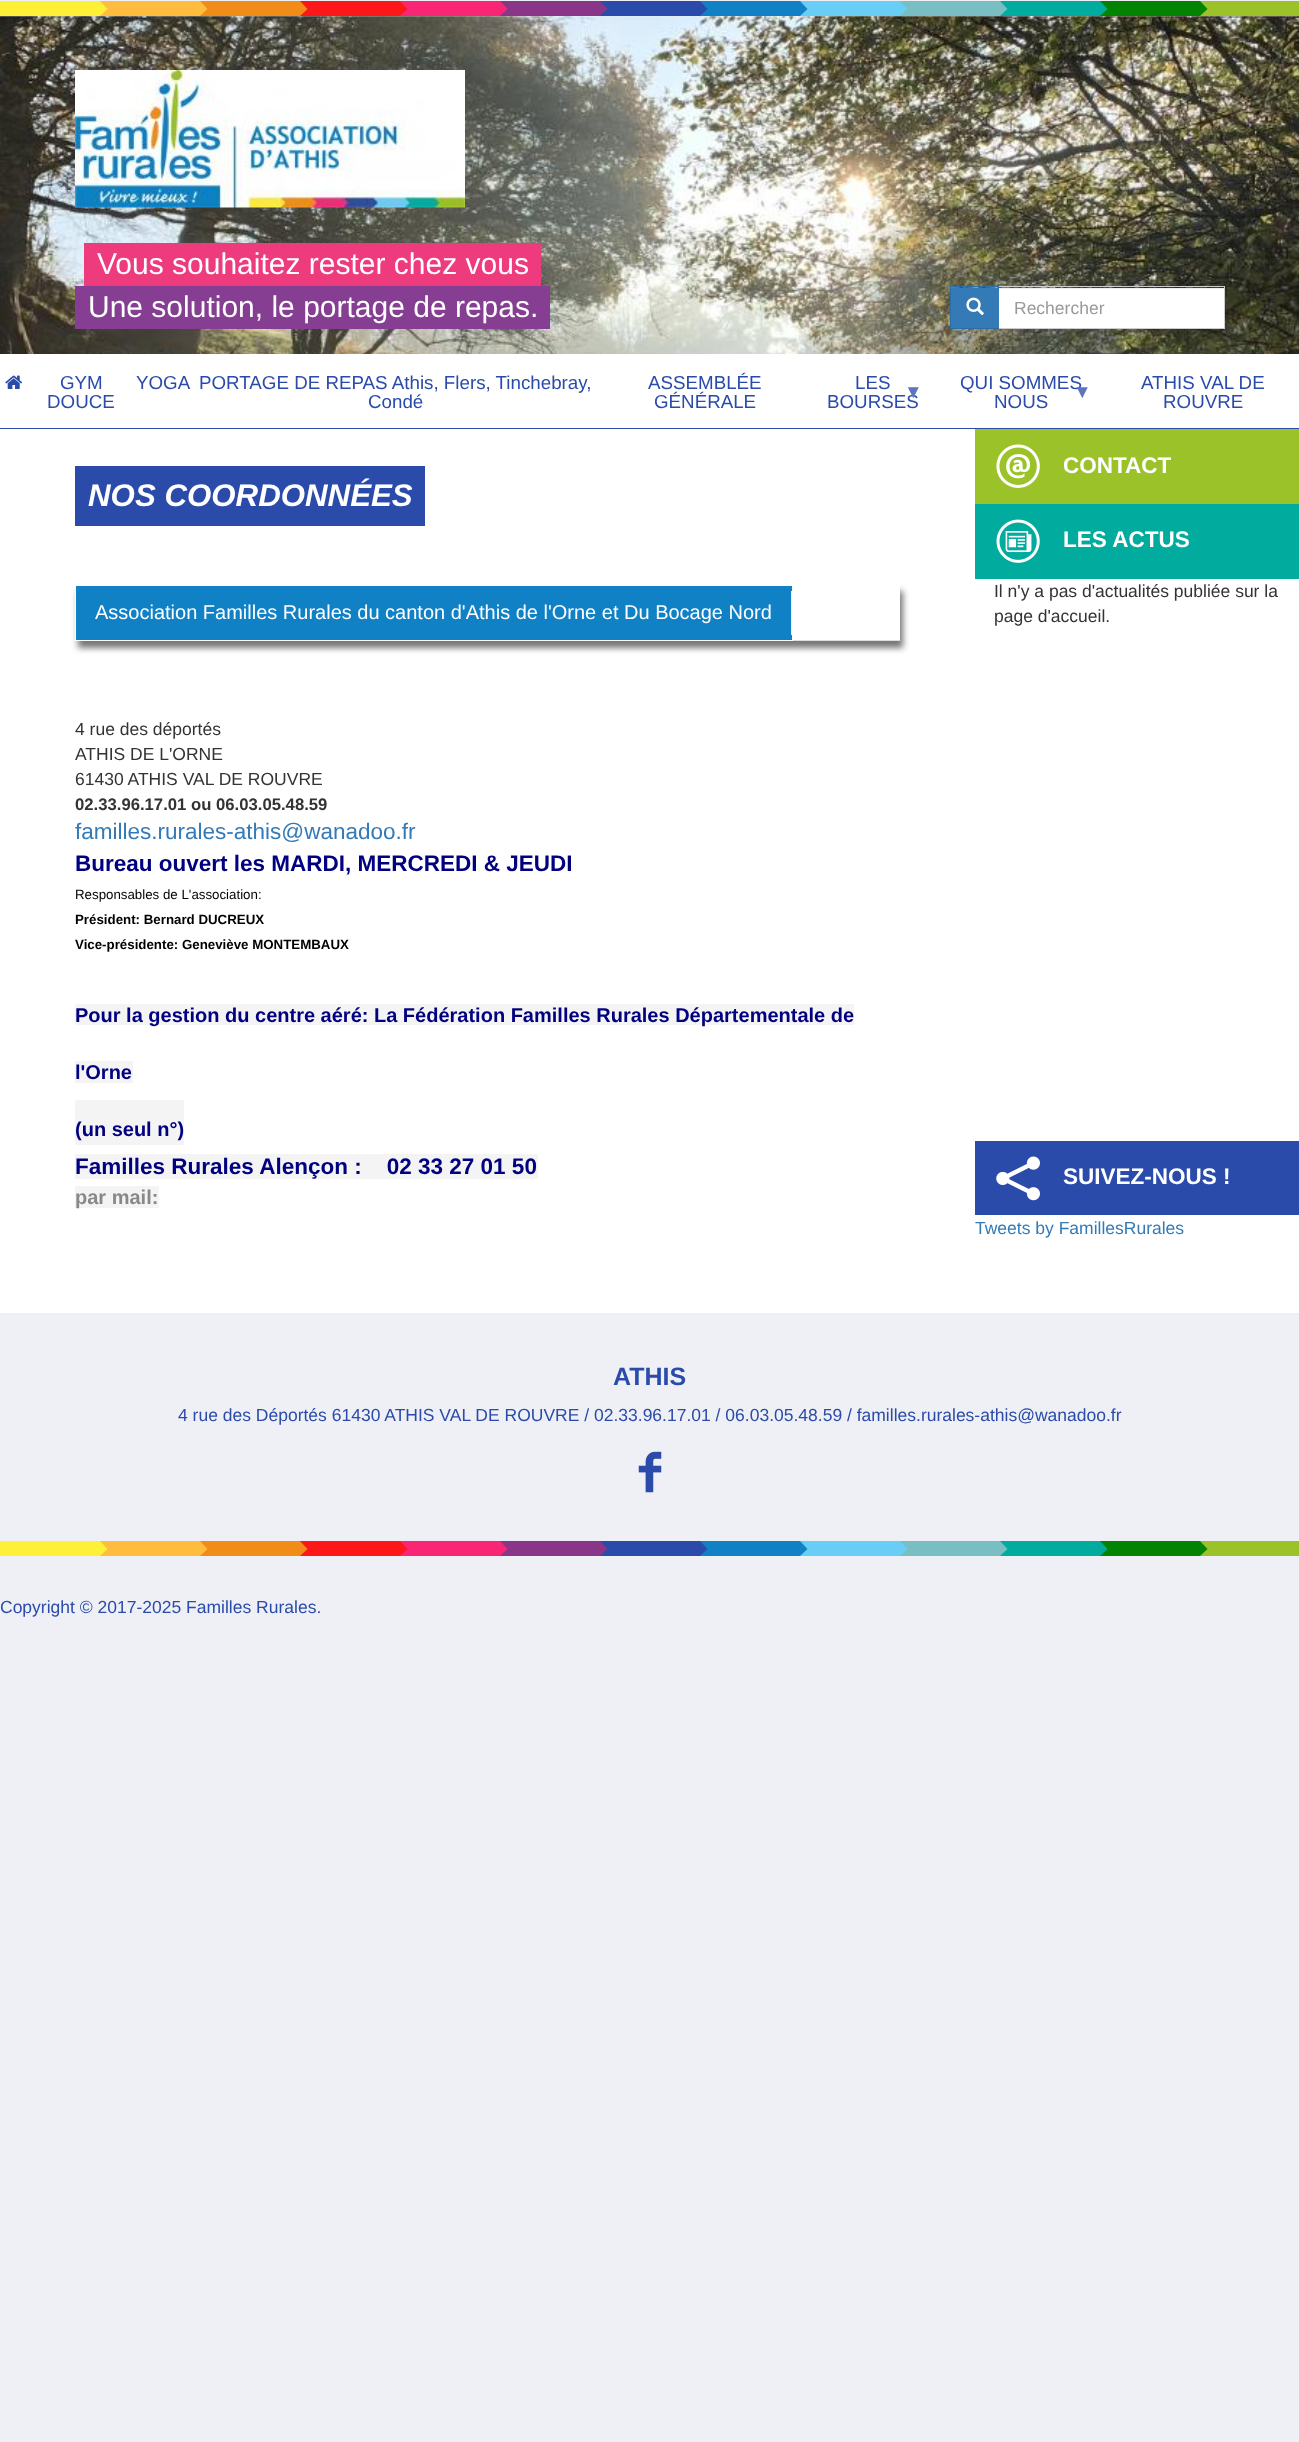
(async () => {
const canvas = document.querySelector("canvas")
canvas.width = 1299
canvas.height = 2442
const c = canvas.getContext("2d")
c.miterLimit = 4
c.fontKerning = "normal"
function T(s,x,y){c.fillText(s,x,y)}
function R(x,y,w,h){c.fillRect(x,y,w,h)}
async function I(src,x,y,w,h){const img=new Image();img.src=src;await img.decode();c.drawImage(img,x,y,w,h)}
let path
c.fillStyle="#eef0f5"
R(0,0,1299,2442)
c.fillStyle="#fdf036"
R(0,1,100,15)
c.fillStyle="#ffbc3f"
R(100,1,100,15)
c.fillStyle="#fdf036"
path = new Path2D("M100 16v-15l7.5 8z")
c.fill(path)
c.fillStyle="#f18c18"
R(200,1,100,15)
c.fillStyle="#ffbc3f"
path = new Path2D("M200 16v-15l7.5 8z")
c.fill(path)
c.fillStyle="#fc1819"
R(300,1,100,15)
c.fillStyle="#f18c18"
path = new Path2D("M300 16v-15l7.5 8z")
c.fill(path)
c.fillStyle="#f92675"
R(400,1,100,15)
c.fillStyle="#fc1819"
path = new Path2D("M400 16v-15l7.5 8z")
c.fill(path)
c.fillStyle="#893688"
R(500,1,100,15)
c.fillStyle="#f92675"
path = new Path2D("M500 16v-15l7.5 8z")
c.fill(path)
c.fillStyle="#2a4baa"
R(600,1,100,15)
c.fillStyle="#893688"
path = new Path2D("M600 16v-15l7.5 8z")
c.fill(path)
c.fillStyle="#1081c5"
R(700,1,100,15)
c.fillStyle="#2a4baa"
path = new Path2D("M700 16v-15l7.5 8z")
c.fill(path)
c.fillStyle="#68cef6"
R(800,1,100,15)
c.fillStyle="#1081c5"
path = new Path2D("M800 16v-15l7.5 8z")
c.fill(path)
c.fillStyle="#78bec3"
R(900,1,100,15)
c.fillStyle="#68cef6"
path = new Path2D("M900 16v-15l7.5 8z")
c.fill(path)
c.fillStyle="#01ab9e"
R(1000,1,100,15)
c.fillStyle="#78bec3"
path = new Path2D("M1000 16v-15l7.5 8z")
c.fill(path)
c.fillStyle="#028400"
R(1100,1,100,15)
c.fillStyle="#01ab9e"
path = new Path2D("M1100 16v-15l7.5 8z")
c.fill(path)
c.fillStyle="#9bc229"
R(1200,1,99,15)
c.fillStyle="#028400"
path = new Path2D("M1200 16v-15l7.5 8z")
c.fill(path)
await I("1.png",0,16,1299,338)
await I("2.png",75,70,390,138)
c.fillStyle="#ed3b7d"
R(84,243,457,43)
c.font="30px Liberation Sans"
c.fillStyle="#fff"
T("Vous souhaitez rester chez vous",97,274)
c.fillStyle="#853e92"
R(75,286,475,43)
c.fillStyle="#fff"
T("Une solution, le portage de repas.",88,317)
c.fillStyle="#337ab7"
R(951,288,48,40)
c.strokeStyle="#2e6da4"
c.strokeRect(950.5,286.5,49,42)
await I("3.png",966,297,18,18)
c.fillStyle="#fff"
R(999,289,225,39)
c.fillStyle="#ececec"
R(999,288,225,1)
c.fillStyle="#ccc"
R(999,286,226,1)
R(1224,286,1,43)
R(999,328,226,1)
c.font="17.5px Liberation Sans"
c.fillStyle="#999"
T("Rechercher",1014,314)
c.fillStyle="#2a4baa"
R(0,428,1299,1)
c.fillStyle="#fff"
R(0,354,1299,74)
await I("4.png",5,375,18,14)
c.font="18.75px Liberation Sans"
c.fillStyle="#2a4baa"
T("GYM",60,389)
T("DOUCE",47,408)
T("YOGA",136,389)
T("PORTAGE DE REPAS Athis, Flers, Tinchebray,",199,389)
T("Condé",368,408)
T("ASSEMBLÉE",648,389)
T("GÉNÉRALE",654,408)
T("LES",855,389)
T("BOURSES",827,408)
c.fillStyle="#5c75be"
T("▼",904,398)
c.fillStyle="#2a4baa"
T("QUI SOMMES",960,389)
c.fillStyle="#5c75be"
T("▼",1073,398)
c.fillStyle="#2a4baa"
T("NOUS",994,408)
T("ATHIS VAL DE",1141,389)
T("ROUVRE",1163,408)
c.fillStyle="#fff"
R(0,429,1299,884)
c.fillStyle="#2a4baa"
R(75,466,350,60)
c.font="italic bold 31.25px Liberation Sans"
c.fillStyle="#fff"
T("NOS COORDONNÉES",88,506)
c.save()
path = new Path2D("M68 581h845v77h-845zm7 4h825v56h-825z")
c.clip(path,"evenodd")
c.fillStyle="#777"
c.filter="blur(3px)"
c.beginPath()
c.rect(78,591,825,57)
c.fill()
c.filter="none"
c.restore()
c.fillStyle="#ddd"
R(793,640,107,1)
c.fillStyle="#1081c5"
R(76,586,716,54)
c.font="20px Liberation Sans"
c.fillStyle="#fff"
T("Association Familles Rurales du canton d'Athis de l'Orne et Du Bocage Nord",95,619)
c.fillStyle="#eef0f5"
R(791,591,1,44)
c.font="17.5px Liberation Sans"
c.fillStyle="#333"
T("4 rue des déportés",75,735)
T("ATHIS DE L'ORNE",75,760)
T("61430 ATHIS VAL DE ROUVRE",75,785)
c.font="bold 16.7px Liberation Sans"
T("02.33.96.17.01 ou 06.03.05.48.59",75,810)
c.font="22.5px Liberation Sans"
c.fillStyle="#337ab7"
T("familles.rurales-athis@wanadoo.fr",75,839)
c.font="bold 22.5px Liberation Sans"
c.fillStyle="#000080"
T("Bureau ouvert les MARDI, MERCREDI & JEUDI",75,871)
c.font="13.3px Liberation Sans"
c.fillStyle="#000"
T("Responsables de L'association:",75,899)
c.font="bold 13.3px Liberation Sans"
T("Président: Bernard DUCREUX",75,924)
T("Vice-présidente: Geneviève MONTEMBAUX",75,949)
c.fillStyle="#f4f4f4"
R(75,1004,779,21)
c.font="bold 20px Liberation Sans"
c.fillStyle="#000080"
T("Pour la gestion du centre aéré: La Fédération Familles Rurales Départementale de",75,1022)
c.fillStyle="#f4f4f4"
R(75,1061,58,22)
c.fillStyle="#000080"
T("l'Orne",75,1079)
c.fillStyle="#f4f4f4"
R(75,1100,109,45)
c.fillStyle="#000080"
T("(un seul n°)",75,1136)
c.fillStyle="#f4f4f4"
R(75,1154,463,25)
c.font="bold 22.5px Liberation Sans"
c.fillStyle="#000080"
T("Familles Rurales Alençon :    02 33 27 01 50",75,1174)
c.fillStyle="#f4f4f4"
R(75,1186,84,22)
c.font="bold 20px Liberation Sans"
c.fillStyle="#888"
T("par mail:",75,1204)
c.fillStyle="#9bc229"
R(975,429,324,75)
await I("5.png",996,444,44,44)
c.font="bold 22.5px Liberation Sans"
c.fillStyle="#fff"
T("CONTACT",1063,473)
c.fillStyle="#01ab9e"
R(975,504,324,75)
await I("6.png",996,519,44,44)
c.fillStyle="#fff"
T("LES ACTUS",1063,547)
c.font="17.5px Liberation Sans"
c.fillStyle="#333"
T("Il n'y a pas d'actualités publiée sur la",994,597)
T("page d'accueil.",994,622)
c.fillStyle="#2a4baa"
R(975,1141,324,74)
await I("7.png",996,1156,44,45)
c.font="bold 22.5px Liberation Sans"
c.fillStyle="#fff"
T("SUIVEZ-NOUS !",1063,1184)
c.font="17.5px Liberation Sans"
c.fillStyle="#337ab7"
T("Tweets by FamillesRurales",975,1234)
c.font="bold 25px Liberation Sans"
c.fillStyle="#2a4baa"
T("ATHIS",613,1385)
c.font="17.5px Liberation Sans"
T("4 rue des Déportés 61430 ATHIS VAL DE ROUVRE / 02.33.96.17.01 / 06.03.05.48.59 / familles.rurales-athis@wanadoo.fr",178,1421)
await I("8.png",638,1451,24,42)
c.fillStyle="#fdf036"
R(0,1541,100,15)
c.fillStyle="#ffbc3f"
R(100,1541,100,15)
c.fillStyle="#fdf036"
path = new Path2D("M100 1556v-15l7.5 8z")
c.fill(path)
c.fillStyle="#f18c18"
R(200,1541,100,15)
c.fillStyle="#ffbc3f"
path = new Path2D("M200 1556v-15l7.5 8z")
c.fill(path)
c.fillStyle="#fc1819"
R(300,1541,100,15)
c.fillStyle="#f18c18"
path = new Path2D("M300 1556v-15l7.5 8z")
c.fill(path)
c.fillStyle="#f92675"
R(400,1541,100,15)
c.fillStyle="#fc1819"
path = new Path2D("M400 1556v-15l7.5 8z")
c.fill(path)
c.fillStyle="#893688"
R(500,1541,100,15)
c.fillStyle="#f92675"
path = new Path2D("M500 1556v-15l7.5 8z")
c.fill(path)
c.fillStyle="#2a4baa"
R(600,1541,100,15)
c.fillStyle="#893688"
path = new Path2D("M600 1556v-15l7.5 8z")
c.fill(path)
c.fillStyle="#1081c5"
R(700,1541,100,15)
c.fillStyle="#2a4baa"
path = new Path2D("M700 1556v-15l7.5 8z")
c.fill(path)
c.fillStyle="#68cef6"
R(800,1541,100,15)
c.fillStyle="#1081c5"
path = new Path2D("M800 1556v-15l7.5 8z")
c.fill(path)
c.fillStyle="#78bec3"
R(900,1541,100,15)
c.fillStyle="#68cef6"
path = new Path2D("M900 1556v-15l7.5 8z")
c.fill(path)
c.fillStyle="#01ab9e"
R(1000,1541,100,15)
c.fillStyle="#78bec3"
path = new Path2D("M1000 1556v-15l7.5 8z")
c.fill(path)
c.fillStyle="#028400"
R(1100,1541,100,15)
c.fillStyle="#01ab9e"
path = new Path2D("M1100 1556v-15l7.5 8z")
c.fill(path)
c.fillStyle="#9bc229"
R(1200,1541,99,15)
c.fillStyle="#028400"
path = new Path2D("M1200 1556v-15l7.5 8z")
c.fill(path)
c.fillStyle="#2a4baa"
T("Copyright © 2017-2025 Familles Rurales.",0,1613)
})()
